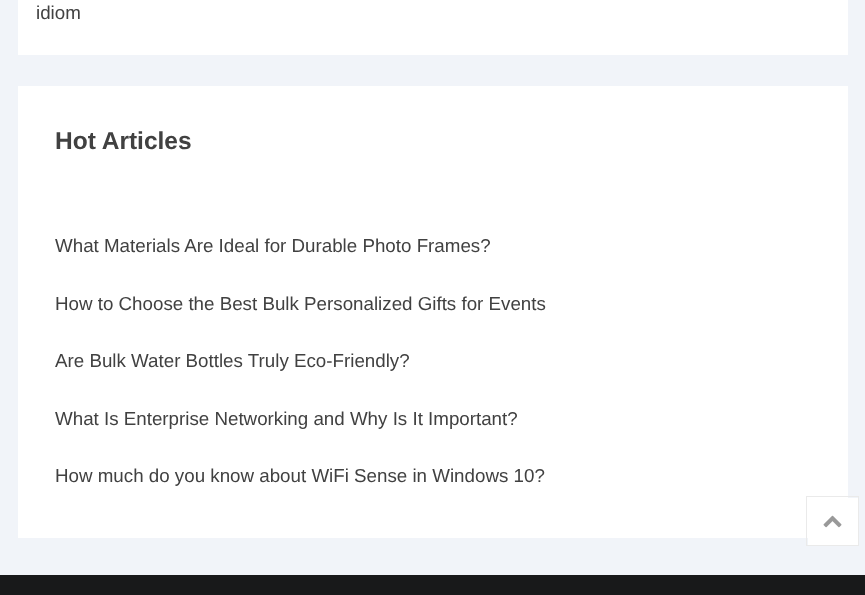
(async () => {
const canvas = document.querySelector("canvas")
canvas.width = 865
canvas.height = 595
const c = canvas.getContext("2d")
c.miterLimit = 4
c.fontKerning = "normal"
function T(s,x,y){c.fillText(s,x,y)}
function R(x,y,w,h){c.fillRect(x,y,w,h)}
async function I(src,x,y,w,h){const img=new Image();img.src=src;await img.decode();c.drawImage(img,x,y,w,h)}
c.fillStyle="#f1f4f9"
R(0,0,865,595)
c.fillStyle="#fff"
R(18,0,830,55)
c.font="18.75px Liberation Sans"
c.fillStyle="#414141"
T("idiom",36,19)
c.fillStyle="#fff"
R(18,86,830,452)
c.font="bold 24.5px Liberation Sans"
c.fillStyle="#414141"
T("Hot Articles",55,149)
c.font="18.75px Liberation Sans"
T("What Materials Are Ideal for Durable Photo Frames?",55,252)
T("How to Choose the Best Bulk Personalized Gifts for Events",55,310)
T("Are Bulk Water Bottles Truly Eco-Friendly?",55,367)
T("What Is Enterprise Networking and Why Is It Important?",55,425)
T("How much do you know about WiFi Sense in Windows 10?",55,482)
c.fillStyle="#18191a"
R(0,575,865,20)
c.strokeStyle="#eaeaea"
c.strokeRect(806.5,496.5,52,49)
c.fillStyle="#fff"
R(808,498,50,47)
await I("1.png",823,515,19,13)
})()
